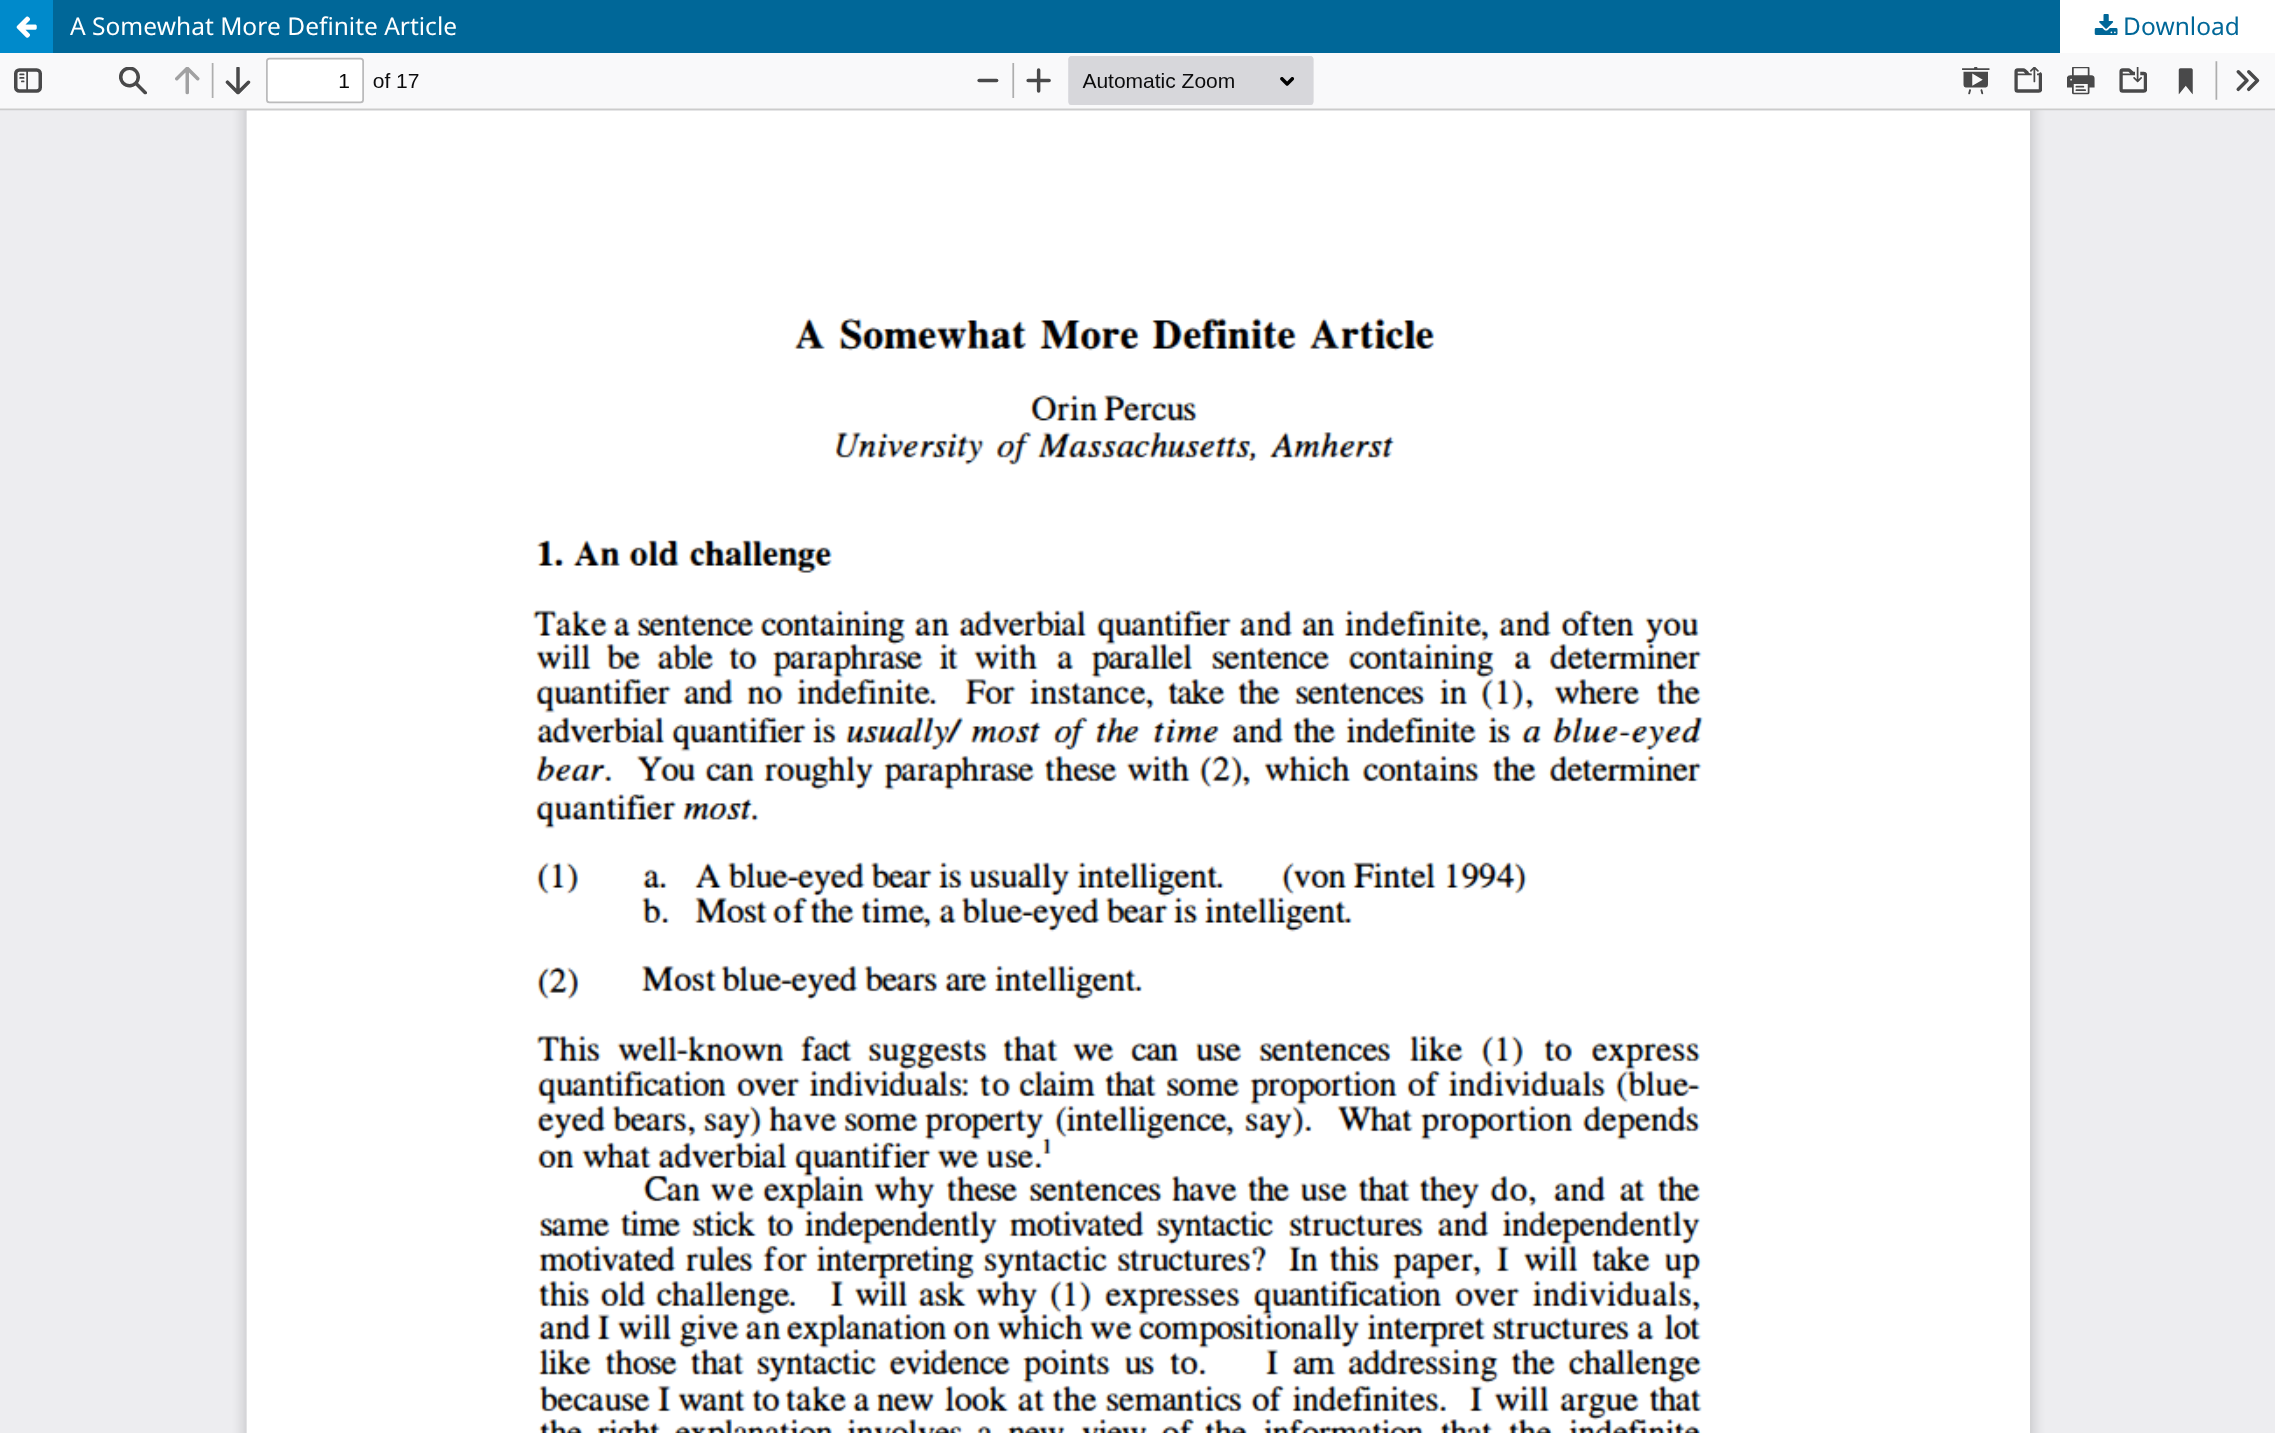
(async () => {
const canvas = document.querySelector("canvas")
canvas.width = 2275
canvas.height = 1433
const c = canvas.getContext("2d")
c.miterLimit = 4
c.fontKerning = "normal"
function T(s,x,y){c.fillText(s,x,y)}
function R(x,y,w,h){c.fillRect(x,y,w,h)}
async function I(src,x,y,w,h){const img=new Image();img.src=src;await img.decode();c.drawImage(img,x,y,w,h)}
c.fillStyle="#fff"
R(0,0,2275,1433)
c.fillStyle="#006798"
R(53,0,2007,53)
c.fillStyle="#008acb"
R(0,0,53,53)
await I("1.png",16,16,21,22)
c.font="24.5px Noto Sans"
c.fillStyle="#fff"
T("A Somewhat More Definite Article",70,35)
await I("2.png",2094,14,24,21)
c.fillStyle="#006798"
T("Download",2123,35)
await I("3.png",0,53,2275,1380)
})()
